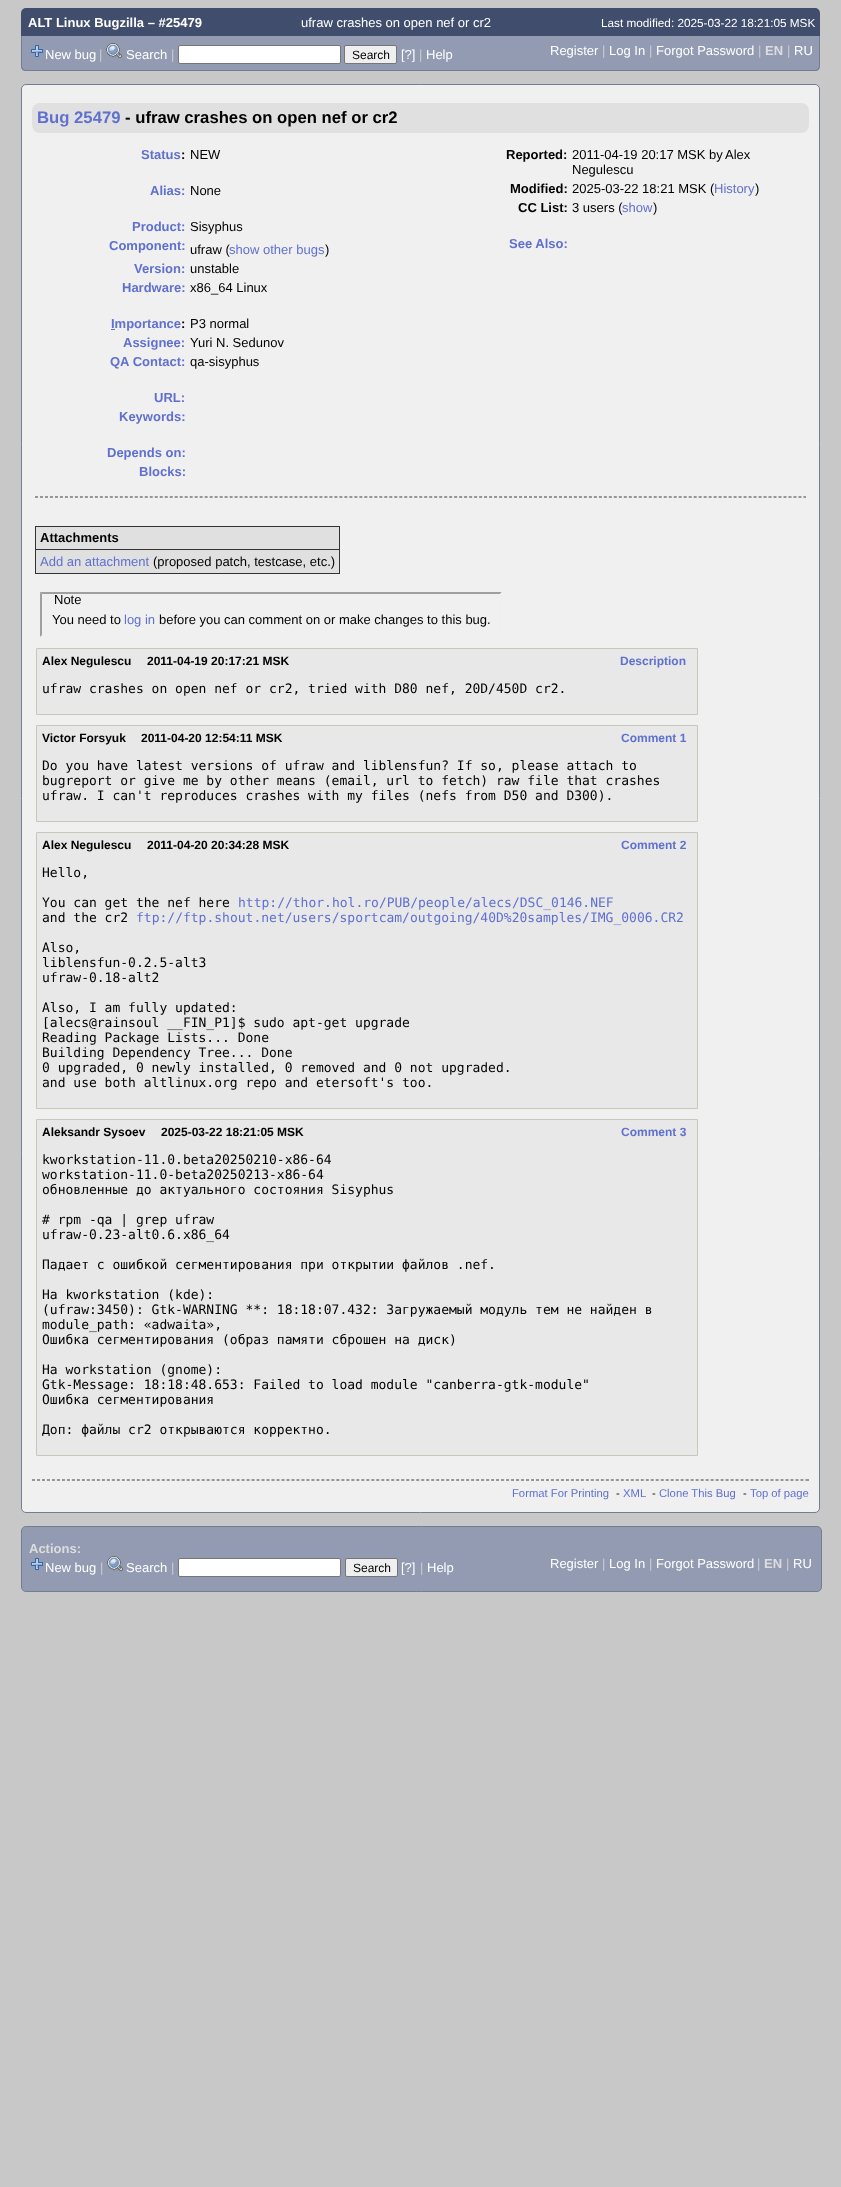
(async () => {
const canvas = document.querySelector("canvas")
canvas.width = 841
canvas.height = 2187
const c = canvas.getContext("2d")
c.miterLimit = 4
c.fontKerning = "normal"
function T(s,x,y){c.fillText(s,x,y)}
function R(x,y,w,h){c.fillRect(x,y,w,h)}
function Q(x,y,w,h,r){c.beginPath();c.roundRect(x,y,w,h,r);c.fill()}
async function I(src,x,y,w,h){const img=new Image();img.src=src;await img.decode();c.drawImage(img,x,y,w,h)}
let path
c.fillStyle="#c8c8c8"
R(0,0,841,2187)
c.fillStyle="#404d6c"
c.beginPath()
c.roundRect(21,8,799,28,[5,5,0,0])
c.fill()
c.font="bold 13px Liberation Sans"
c.fillStyle="#fff"
T("ALT Linux Bugzilla – #25479",28,27)
c.font="13px Liberation Sans"
T("ufraw crashes on open nef or cr2",301,27)
c.font="11.75px Liberation Sans"
T("Last modified: 2025-03-22 18:21:05 MSK",601,27)
c.fillStyle="#929bb1"
c.beginPath()
c.roundRect(21,36,799,35,[0,0,5,5])
c.fill()
c.fillStyle="#747e93"
path = new Path2D("M21 36h799v30c0 3-2 5-5 5h-789c-3 0-5-2-5-5zm1 0h797v30c0 2-2 4-4 4h-789c-2 0-4-2-4-4z")
c.fill(path,"evenodd")
await I("1.png",31,45,12,12)
c.font="13px Liberation Sans"
c.fillStyle="#fff"
T("New bug",45,59)
c.fillStyle="#ccc"
T("|",99,59)
await I("2.png",106,43,16,15)
c.fillStyle="#fff"
T("Search",126,59)
c.fillStyle="#ccc"
T("|",171,59)
c.fillStyle="#fff"
c.beginPath()
c.roundRect(178.5,45.5,162,18,1.5)
c.fill()
c.strokeStyle="#767676"
c.stroke()
c.fillStyle="#efefef"
c.beginPath()
c.roundRect(344.5,45.5,52,18,1.5)
c.fill()
c.stroke()
c.font="12px Liberation Sans"
c.fillStyle="#000"
T("Search",352,59)
c.font="13px Liberation Sans"
c.fillStyle="#fff"
T("[?]",401,59)
c.fillStyle="#ccc"
T("|",419,59)
c.fillStyle="#fff"
T("Help",426,59)
T("Register",550,55)
c.fillStyle="#ccc"
T("|",602,55)
c.fillStyle="#fff"
T("Log In",609,55)
c.fillStyle="#ccc"
T("|",649,55)
c.fillStyle="#fff"
T("Forgot Password",656,55)
c.fillStyle="#ccc"
T("|",758,55)
c.font="bold 13px Liberation Sans"
c.fillStyle="#ddd"
T("EN",765,55)
c.font="13px Liberation Sans"
c.fillStyle="#ccc"
T("|",787,55)
c.fillStyle="#fff"
T("RU",794,55)
c.fillStyle="#f0f0f0"
c.beginPath()
c.roundRect(21.5,84.5,798,1428,4.5)
c.fill()
c.strokeStyle="#747e93"
c.stroke()
c.fillStyle="#e0e0e0"
Q(32,103,777,30,8)
c.font="bold 16.7px Liberation Sans"
c.fillStyle="#6070cf"
T("Bug 25479",37,123)
c.fillStyle="#000"
T("- ufraw crashes on open nef or cr2",125,123)
c.font="bold 13px Liberation Sans"
c.fillStyle="#6070cf"
T("Status",141,159)
c.fillStyle="#000"
T(":",181,159)
c.font="13px Liberation Sans"
T("NEW",190,159)
c.font="bold 13px Liberation Sans"
c.fillStyle="#6070cf"
T("Alias:",150,195)
c.font="13px Liberation Sans"
c.fillStyle="#000"
T("None",190,195)
c.font="bold 13px Liberation Sans"
c.fillStyle="#6070cf"
T("Product:",132,231)
c.font="13px Liberation Sans"
c.fillStyle="#000"
T("Sisyphus",190,231)
c.font="bold 13px Liberation Sans"
c.fillStyle="#6070cf"
T("Component:",109,250)
c.font="13px Liberation Sans"
c.fillStyle="#000"
T("ufraw (",190,254)
c.fillStyle="#6070cf"
T("show other bugs",229,254)
c.fillStyle="#000"
T(")",325,254)
c.font="bold 13px Liberation Sans"
c.fillStyle="#6070cf"
T("Version:",134,273)
c.font="13px Liberation Sans"
c.fillStyle="#000"
T("unstable",190,273)
c.font="bold 13px Liberation Sans"
c.fillStyle="#6070cf"
T("Hardware:",122,292)
c.font="13px Liberation Sans"
c.fillStyle="#000"
T("x86_64 Linux",190,292)
c.fillStyle="#6070cf"
R(111,329,4,1)
c.font="bold 13px Liberation Sans"
T("Importance",111,328)
c.fillStyle="#000"
T(":",181,328)
c.font="13px Liberation Sans"
T("P3 normal",190,328)
c.font="bold 13px Liberation Sans"
c.fillStyle="#6070cf"
T("Assignee:",123,347)
c.font="13px Liberation Sans"
c.fillStyle="#000"
T("Yuri N. Sedunov",190,347)
c.font="bold 13px Liberation Sans"
c.fillStyle="#6070cf"
T("QA Contact:",110,366)
c.font="13px Liberation Sans"
c.fillStyle="#000"
T("qa-sisyphus",190,366)
c.font="bold 13px Liberation Sans"
c.fillStyle="#6070cf"
T("URL:",154,402)
T("Keywords:",119,421)
T("Depends on:",107,457)
T("Blocks:",139,476)
c.fillStyle="#000"
T("Reported:",506,159)
c.font="13px Liberation Sans"
T("2011-04-19 20:17 MSK by",572,159)
T("Alex",725,159)
T("Negulescu",572,174)
c.font="bold 13px Liberation Sans"
T("Modified:",510,193)
c.font="13px Liberation Sans"
T("2025-03-22 18:21 MSK (",572,193)
c.fillStyle="#6070cf"
T("History",714,193)
c.fillStyle="#000"
T(")",755,193)
c.font="bold 13px Liberation Sans"
T("CC List:",518,212)
c.font="13px Liberation Sans"
T("3 users (",572,212)
c.fillStyle="#6070cf"
T("show",622,212)
c.fillStyle="#000"
T(")",653,212)
c.font="bold 13px Liberation Sans"
c.fillStyle="#6070cf"
T("See Also:",509,248)
path = new Path2D("M35 496.5h771")
c.strokeStyle="#969696"
c.setLineDash([3,1.99])
c.stroke(path)
c.fillStyle="#969696"
R(805,496,1,2)
path = new Path2D("M35 497.5h771")
c.stroke(path)
c.fillStyle="#333"
R(35,526,305,1)
R(339,526,1,48)
R(35,573,305,1)
R(35,526,1,48)
c.fillStyle="#e0e0e0"
R(36,527,303,22)
c.fillStyle="#000"
T("Attachments",40,542)
c.fillStyle="#e0e0e0"
R(36,550,303,23)
c.fillStyle="#333"
R(35,549,305,1)
c.font="13px Liberation Sans"
c.fillStyle="#6070cf"
T("Add an attachment",40,566)
c.fillStyle="#000"
T("(proposed patch, testcase, etc.)",153,566)
c.fillStyle="#9f9f9f"
path = new Path2D("M40 592h462l-2 2h-458z")
c.fill(path)
c.fillStyle="#efefef"
path = new Path2D("M502 592v45l-2-2v-41z")
c.fill(path)
c.fillStyle="#9f9f9f"
path = new Path2D("M40 637v-45l2 2v41z")
c.fill(path)
c.fillStyle="#000"
T("Note",54,604)
T("You need to",52,624)
c.fillStyle="#6070cf"
T("log in",124,624)
c.fillStyle="#000"
T("before you can comment on or make changes to this bug.",159,624)
c.fillStyle="#e8e8e8"
c.beginPath()
c.rect(36.5,648.5,661,66)
c.fill()
c.strokeStyle="#c8c8ba"
c.setLineDash([])
c.stroke()
c.font="bold 12px Liberation Sans"
c.fillStyle="#000"
T("Alex Negulescu",42,665)
T("2011-04-19 20:17:21 MSK",147,665)
c.fillStyle="#6070cf"
T("Description",620,665)
c.font="13px DejaVu Sans Mono"
c.fillStyle="#000"
T("ufraw crashes on open nef or cr2, tried with D80 nef, 20D/450D cr2.",42,693)
c.fillStyle="#e8e8e8"
c.beginPath()
c.rect(36.5,725.5,661,96)
c.fill()
c.stroke()
c.font="bold 12px Liberation Sans"
c.fillStyle="#000"
T("Victor Forsyuk",42,742)
T("2011-04-20 12:54:11 MSK",141,742)
c.fillStyle="#6070cf"
T("Comment 1",621,742)
c.font="13px DejaVu Sans Mono"
c.fillStyle="#000"
T("Do you have latest versions of ufraw and liblensfun? If so, please attach to",42,770)
T("bugreport or give me by other means (email, url to fetch) raw file that crashes",42,785)
T("ufraw. I can't reproduces crashes with my files (nefs from D50 and D300).",42,800)
c.fillStyle="#e8e8e8"
c.beginPath()
c.rect(36.5,832.5,661,276)
c.fill()
c.stroke()
c.font="bold 12px Liberation Sans"
c.fillStyle="#000"
T("Alex Negulescu",42,849)
T("2011-04-20 20:34:28 MSK",147,849)
c.fillStyle="#6070cf"
T("Comment 2",621,849)
c.font="13px DejaVu Sans Mono"
c.fillStyle="#000"
T("Hello,",42,877)
T("You can get the nef here",42,907)
c.fillStyle="#6070cf"
T("http://thor.hol.ro/PUB/people/alecs/DSC_0146.NEF",238,907)
c.fillStyle="#000"
T("and the cr2",42,922)
c.fillStyle="#6070cf"
T("ftp://ftp.shout.net/users/sportcam/outgoing/40D%20samples/IMG_0006.CR2",136,922)
c.fillStyle="#000"
T("Also,",42,952)
T("liblensfun-0.2.5-alt3",42,967)
T("ufraw-0.18-alt2",42,982)
T("Also, I am fully updated:",42,1012)
T("[alecs@rainsoul __FIN_P1]$ sudo apt-get upgrade",42,1027)
T("Reading Package Lists... Done",42,1042)
T("Building Dependency Tree... Done",42,1057)
T("0 upgraded, 0 newly installed, 0 removed and 0 not upgraded.",42,1072)
T("and use both altlinux.org repo and etersoft's too.",42,1087)
c.fillStyle="#e8e8e8"
c.beginPath()
c.rect(36.5,1119.5,661,336)
c.fill()
c.stroke()
c.font="bold 12px Liberation Sans"
c.fillStyle="#000"
T("Aleksandr Sysoev",42,1136)
T("2025-03-22 18:21:05 MSK",161,1136)
c.fillStyle="#6070cf"
T("Comment 3",621,1136)
c.font="13px DejaVu Sans Mono"
c.fillStyle="#000"
T("kworkstation-11.0.beta20250210-x86-64",42,1164)
T("workstation-11.0-beta20250213-x86-64",42,1179)
T("обновленные до актуального состояния Sisyphus",42,1194)
T("# rpm -qa | grep ufraw",42,1224)
T("ufraw-0.23-alt0.6.x86_64",42,1239)
T("Падает с ошибкой сегментирования при открытии файлов .nef.",42,1269)
T("На kworkstation (kde):",42,1299)
T("(ufraw:3450): Gtk-WARNING **: 18:18:07.432: Загружаемый модуль тем не найден в",42,1314)
T("module_path: «adwaita»,",42,1329)
T("Ошибка сегментирования (образ памяти сброшен на диск)",42,1344)
T("На workstation (gnome):",42,1374)
T("Gtk-Message: 18:18:48.653: Failed to load module \"canberra-gtk-module\"",42,1389)
T("Ошибка сегментирования",42,1404)
T("Доп: файлы cr2 открываются корректно.",42,1434)
path = new Path2D("M32 1479.5h777")
c.strokeStyle="#969696"
c.setLineDash([3,1.99])
c.stroke(path)
c.fillStyle="#969696"
R(808,1479,1,2)
path = new Path2D("M32 1480.5h777")
c.stroke(path)
c.font="11.25px Liberation Sans"
c.fillStyle="#6070cf"
T("Format For Printing",512,1497)
c.fillStyle="#000"
T("-",616,1497)
c.fillStyle="#6070cf"
T("XML",623,1497)
c.fillStyle="#000"
T("-",652,1497)
c.fillStyle="#6070cf"
T("Clone This Bug",659,1497)
c.fillStyle="#000"
T("-",743,1497)
c.fillStyle="#6070cf"
T("Top of page",750,1497)
c.fillStyle="#929bb1"
c.beginPath()
c.roundRect(21.5,1526.5,800,65,4.5)
c.fill()
c.strokeStyle="#747e93"
c.setLineDash([])
c.stroke()
c.font="bold 13px Liberation Sans"
c.fillStyle="#ddd"
T("Actions:",29,1553)
await I("1.png",31,1558,12,12)
c.font="13px Liberation Sans"
c.fillStyle="#fff"
T("New bug",45,1572)
c.fillStyle="#ccc"
T("|",100,1572)
await I("2.png",107,1556,16,15)
c.fillStyle="#fff"
T("Search",126,1572)
c.fillStyle="#ccc"
T("|",171,1572)
c.fillStyle="#fff"
c.beginPath()
c.roundRect(178.5,1558.5,162,18,1.5)
c.fill()
c.strokeStyle="#767676"
c.stroke()
c.fillStyle="#efefef"
c.beginPath()
c.roundRect(345.5,1558.5,52,18,1.5)
c.fill()
c.stroke()
c.font="12px Liberation Sans"
c.fillStyle="#000"
T("Search",353,1572)
c.font="13px Liberation Sans"
c.fillStyle="#fff"
T("[?]",401,1572)
c.fillStyle="#ccc"
T("|",420,1572)
c.fillStyle="#fff"
T("Help",427,1572)
T("Register",550,1568)
c.fillStyle="#ccc"
T("|",602,1568)
c.fillStyle="#fff"
T("Log In",609,1568)
c.fillStyle="#ccc"
T("|",649,1568)
c.fillStyle="#fff"
T("Forgot Password",656,1568)
c.fillStyle="#ccc"
T("|",757,1568)
c.font="bold 13px Liberation Sans"
c.fillStyle="#ddd"
T("EN",764,1568)
c.font="13px Liberation Sans"
c.fillStyle="#ccc"
T("|",786,1568)
c.fillStyle="#fff"
T("RU",793,1568)
})()
